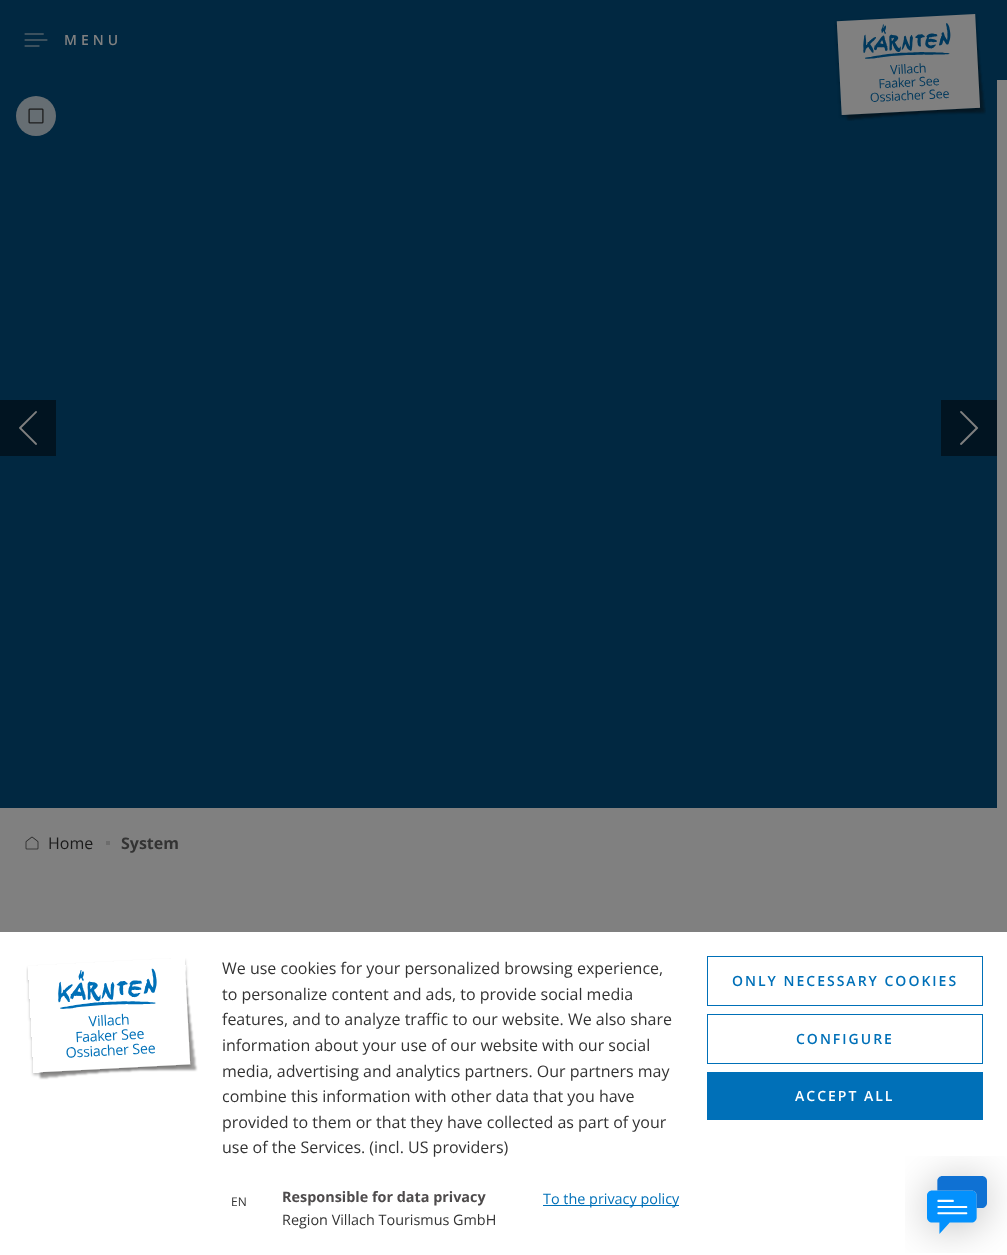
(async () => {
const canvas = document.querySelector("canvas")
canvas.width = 1007
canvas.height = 1255
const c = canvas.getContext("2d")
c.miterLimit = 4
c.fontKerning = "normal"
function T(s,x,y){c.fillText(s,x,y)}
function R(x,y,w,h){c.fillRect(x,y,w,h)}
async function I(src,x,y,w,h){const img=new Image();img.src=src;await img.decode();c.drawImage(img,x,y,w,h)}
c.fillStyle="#808080"
R(0,0,1007,1255)
c.fillStyle="#012841"
R(0,0,1007,80)
await I("1.png",24,33,24,14)
c.letterSpacing="4px"
c.font="600 14px Open Sans"
c.fillStyle="#808080"
T("MENU",64,45)
c.fillStyle="#012841"
R(0,80,997,728)
await I("2.png",834,14,152,107)
c.fillStyle="#666e73"
c.beginPath()
c.arc(36,116,20,0,7)
c.fill()
await I("3.png",28,108,16,16)
c.fillStyle="#011421"
R(0,400,56,56)
await I("4.png",19,411,18,34)
R(941,400,56,56)
await I("5.png",960,411,19,34)
await I("6.png",25,836,14,14)
c.letterSpacing="0px"
c.font="16px Open Sans"
c.fillStyle="#1a1a1a"
T("Home",48,849)
c.fillStyle="#6d6d6d"
R(106,841,4,4)
c.font="bold 16px Open Sans"
c.fillStyle="#333"
T("System",121,849)
c.fillStyle="#fff"
R(0,932,1007,323)
await I("7.png",26,958,172,122)
c.font="16px Open Sans"
c.fillStyle="#333"
T("We use cookies for your personalized browsing experience,",222,974)
T("to personalize content and ads, to provide social media",222,1000)
T("features, and to analyze traffic to our website. We also share",222,1025)
T("information about your use of our website with our social",222,1051)
T("media, advertising and analytics partners. Our partners may",222,1077)
T("combine this information with other data that you have",222,1102)
T("provided to them or that they have collected as part of your",222,1128)
T("use of the Services. (incl. US providers)",222,1153)
c.strokeStyle="#0070b8"
c.strokeRect(707.5,956.5,275,49)
c.letterSpacing="2px"
c.font="600 14px Open Sans"
c.fillStyle="#0070b8"
T("ONLY NECESSARY COOKIES",732,986)
c.strokeRect(707.5,1014.5,275,49)
T("CONFIGURE",796,1044)
R(707,1072,276,48)
c.fillStyle="#fff"
T("ACCEPT ALL",795,1101)
c.letterSpacing="0px"
c.font="12px Open Sans"
c.fillStyle="#333"
T("EN",231,1206)
c.font="bold 14.4px Open Sans"
c.fillStyle="#4e4b4c"
T("Responsible for data privacy",282,1202)
c.font="14.4px Open Sans"
c.fillStyle="#333"
T("Region Villach Tourismus GmbH",282,1225)
c.fillStyle="#0070b8"
R(543,1205,136,1)
T("To the privacy policy",543,1204)
await I("8.png",905,1156,102,97)
})()
